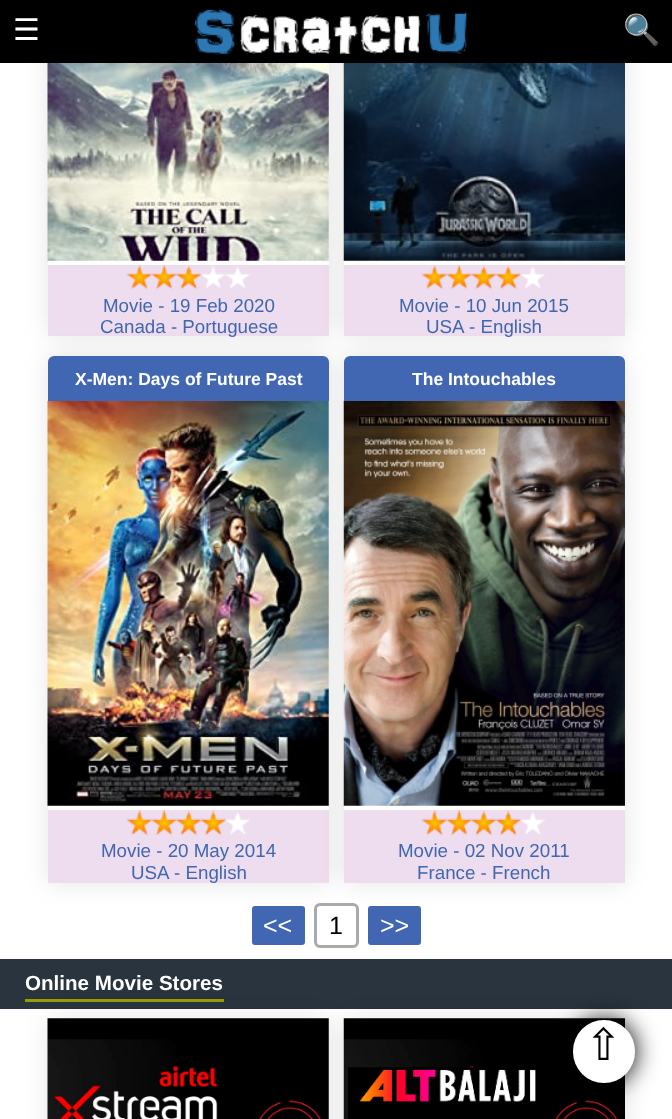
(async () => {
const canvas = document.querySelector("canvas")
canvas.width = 672
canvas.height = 1119
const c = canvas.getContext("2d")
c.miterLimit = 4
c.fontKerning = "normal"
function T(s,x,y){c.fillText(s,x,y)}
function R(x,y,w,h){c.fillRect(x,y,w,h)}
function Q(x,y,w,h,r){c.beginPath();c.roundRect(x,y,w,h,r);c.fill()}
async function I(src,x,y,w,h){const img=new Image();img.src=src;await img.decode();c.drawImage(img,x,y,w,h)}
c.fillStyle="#fff"
R(0,0,672,1119)
c.fillStyle="#0000001a"
c.filter="blur(12.5px)"
c.beginPath()
c.roundRect(48,-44,281,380,6)
c.fill()
c.filter="none"
c.fillStyle="#fff"
R(48,63,281,202)
await I("2.png",47,63,282,198)
c.fillStyle="#ede"
R(48,265,281,71)
c.fillStyle="#0000001a"
c.filter="blur(12.5px)"
c.beginPath()
c.roundRect(344,-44,281,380,6)
c.fill()
c.filter="none"
c.fillStyle="#000"
R(0,0,672,63)
c.font="30px DejaVu Sans"
c.fillStyle="#fff"
T("☰",13,40)
await I("1.png",194,8,273,47)
c.font="30px Noto Color Emoji"
T("🔍",623,40)
await I("3.png",126,264,124,26)
c.font="18.75px Liberation Sans"
c.fillStyle="#4267b2"
T("Movie - 19 Feb 2020",103,312)
T("Canada - Portuguese",100,333)
c.fillStyle="#fff"
R(344,260,281,5)
await I("4.png",343,63,282,198)
c.fillStyle="#ede"
R(344,265,281,71)
await I("5.png",421,264,124,26)
c.fillStyle="#4267b2"
T("Movie - 10 Jun 2015",399,312)
T("USA",426,333)
T("- English",469,333)
c.fillStyle="#0000001a"
c.filter="blur(12.5px)"
c.beginPath()
c.roundRect(48,356,281,527,6)
c.fill()
c.filter="none"
c.fillStyle="#fff"
Q(48,356,281,527,6)
await I("6.png",47,400,282,406)
c.fillStyle="#ede"
R(48,810,281,73)
c.fillStyle="#0000001a"
c.filter="blur(12.5px)"
c.beginPath()
c.roundRect(344,356,281,527,6)
c.fill()
c.filter="none"
c.fillStyle="#4267b2"
c.beginPath()
c.roundRect(48,356,281,45,[6,6,0,0])
c.fill()
c.font="bold 17.5px Liberation Sans"
c.fillStyle="#fff"
T("X-Men: Days of Future Past",75,385)
await I("7.png",126,809,124,27)
c.font="18.75px Liberation Sans"
c.fillStyle="#4267b2"
T("Movie - 20 May 2014",101,857)
T("USA",131,879)
T("- English",174,879)
c.fillStyle="#fff"
Q(344,356,281,527,6)
await I("8.png",343,400,282,406)
c.fillStyle="#4267b2"
c.beginPath()
c.roundRect(344,356,281,45,[6,6,0,0])
c.fill()
c.font="bold 17.5px Liberation Sans"
c.fillStyle="#fff"
T("The Intouchables",412,385)
c.fillStyle="#ede"
R(344,810,281,73)
await I("7.png",421,809,124,27)
c.font="18.75px Liberation Sans"
c.fillStyle="#4267b2"
T("Movie - 02 Nov 2011",398,857)
T("France - French",417,879)
c.beginPath()
c.roundRect(250.5,904.5,56,42,4.5)
c.fill()
c.strokeStyle="#fff"
c.lineWidth=3
c.stroke()
c.font="25px Liberation Sans"
c.fillStyle="#fff"
T("<<",263,934)
c.beginPath()
c.roundRect(315.5,904.5,42,42,4.5)
c.strokeStyle="#aaa"
c.stroke()
c.fillStyle="#000"
T("1",329,934)
c.fillStyle="#4267b2"
c.beginPath()
c.roundRect(366.5,904.5,56,42,4.5)
c.fill()
c.strokeStyle="#fff"
c.stroke()
c.fillStyle="#fff"
T(">>",380,934)
c.fillStyle="#2a343e"
R(0,959,672,50)
c.fillStyle="#9b9b07"
R(25,999,199,3)
c.font="bold 20.6px Liberation Sans"
c.fillStyle="#fff"
T("Online Movie Stores",25,990)
c.fillStyle="#0000001a"
c.filter="blur(12.5px)"
c.beginPath()
c.roundRect(48,1019,281,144,6)
c.fill()
c.filter="none"
await I("9.png",47,1018,282,101)
c.filter="blur(12.5px)"
c.beginPath()
c.roundRect(344,1019,281,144,6)
c.fill()
c.filter="none"
await I("10.png",343,1018,282,101)
c.fillStyle="#000"
c.filter="blur(12.5px)"
c.beginPath()
c.roundRect(573,1020,62,63,31)
c.fill()
c.filter="none"
c.fillStyle="#fff"
Q(573,1020,62,63,31)
c.font="44px DejaVu Sans"
c.fillStyle="#000"
T("⇧",585,1060)
})()
